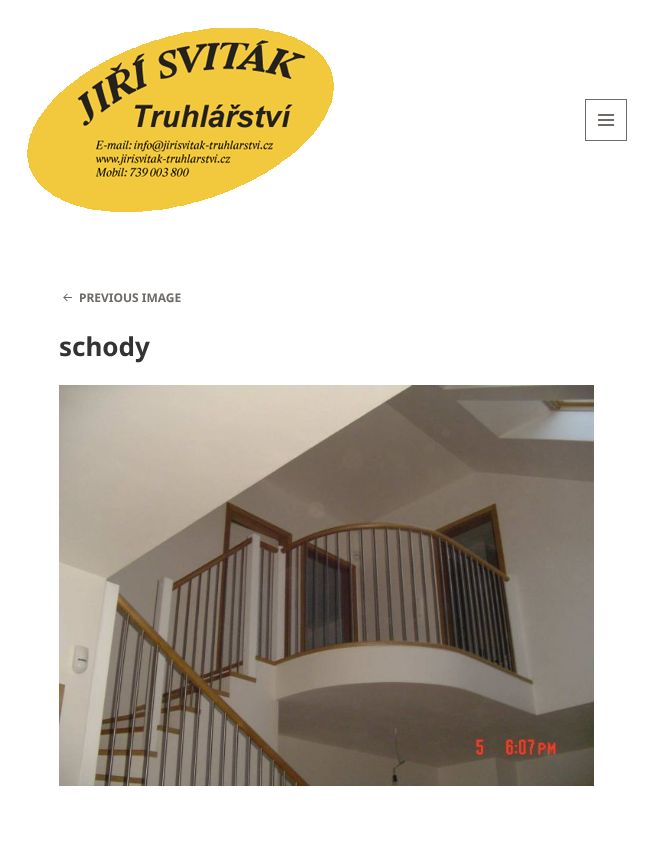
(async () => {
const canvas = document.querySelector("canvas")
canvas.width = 653
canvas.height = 853
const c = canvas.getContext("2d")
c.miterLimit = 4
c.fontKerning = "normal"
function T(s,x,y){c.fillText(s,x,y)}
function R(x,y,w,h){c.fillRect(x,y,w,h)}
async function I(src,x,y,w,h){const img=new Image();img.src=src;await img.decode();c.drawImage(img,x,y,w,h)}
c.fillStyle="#fff"
R(0,0,653,853)
await I("1.png",27,28,307,184)
c.strokeStyle="#6f6b68"
c.strokeRect(585.5,99.5,41,41)
await I("2.png",598,114,16,12)
await I("3.png",63,293,9,9)
c.font="bold 12px Noto Sans"
c.fillStyle="#6f6b68"
T("PREVIOUS IMAGE",79,302)
c.font="bold 26px Noto Sans"
c.fillStyle="#333"
T("schody",59,356)
await I("4.png",59,385,535,401)
})()
